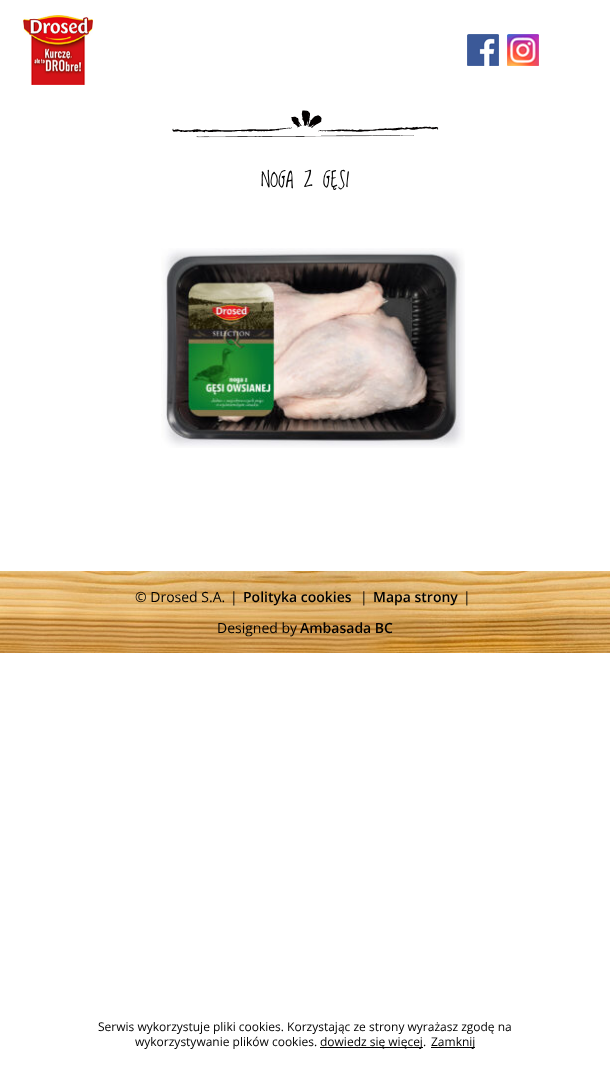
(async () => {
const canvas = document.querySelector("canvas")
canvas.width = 610
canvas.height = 1069
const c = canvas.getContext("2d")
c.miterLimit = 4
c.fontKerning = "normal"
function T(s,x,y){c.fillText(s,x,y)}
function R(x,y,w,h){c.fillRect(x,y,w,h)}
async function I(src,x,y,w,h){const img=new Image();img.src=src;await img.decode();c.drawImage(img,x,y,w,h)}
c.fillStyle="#fff"
R(0,0,610,1069)
await I("1.png",23,15,70,70)
await I("2.png",467,34,32,32)
await I("3.png",507,34,32,32)
await I("4.png",172,110,267,28)
c.font="20px Loved by the King"
c.fillStyle="#000"
T("NOGA Z GĘSI",261,187)
await I("5.png",161,248,304,200)
await I("6.png",0,571,610,82)
c.font="14px Open Sans"
T("© Drosed S.A.",135,602)
T("|",230,602)
c.font="600 14px Open Sans"
T("Polityka cookies",243,602)
c.font="14px Open Sans"
T("|",360,602)
c.font="600 14px Open Sans"
T("Mapa strony",373,602)
c.font="14px Open Sans"
T("|",463,602)
T("Designed by",217,633)
c.font="600 14px Open Sans"
T("Ambasada BC",300,633)
c.font="12px Open Sans"
T("Serwis wykorzystuje pliki cookies. Korzystając ze strony wyrażasz zgodę na",98,1031)
T("wykorzystywanie plików cookies.",135,1046)
R(320,1047,103,1)
T("dowiedz się więcej.",320,1046)
R(431,1047,44,1)
T("Zamknij",431,1046)
})()
